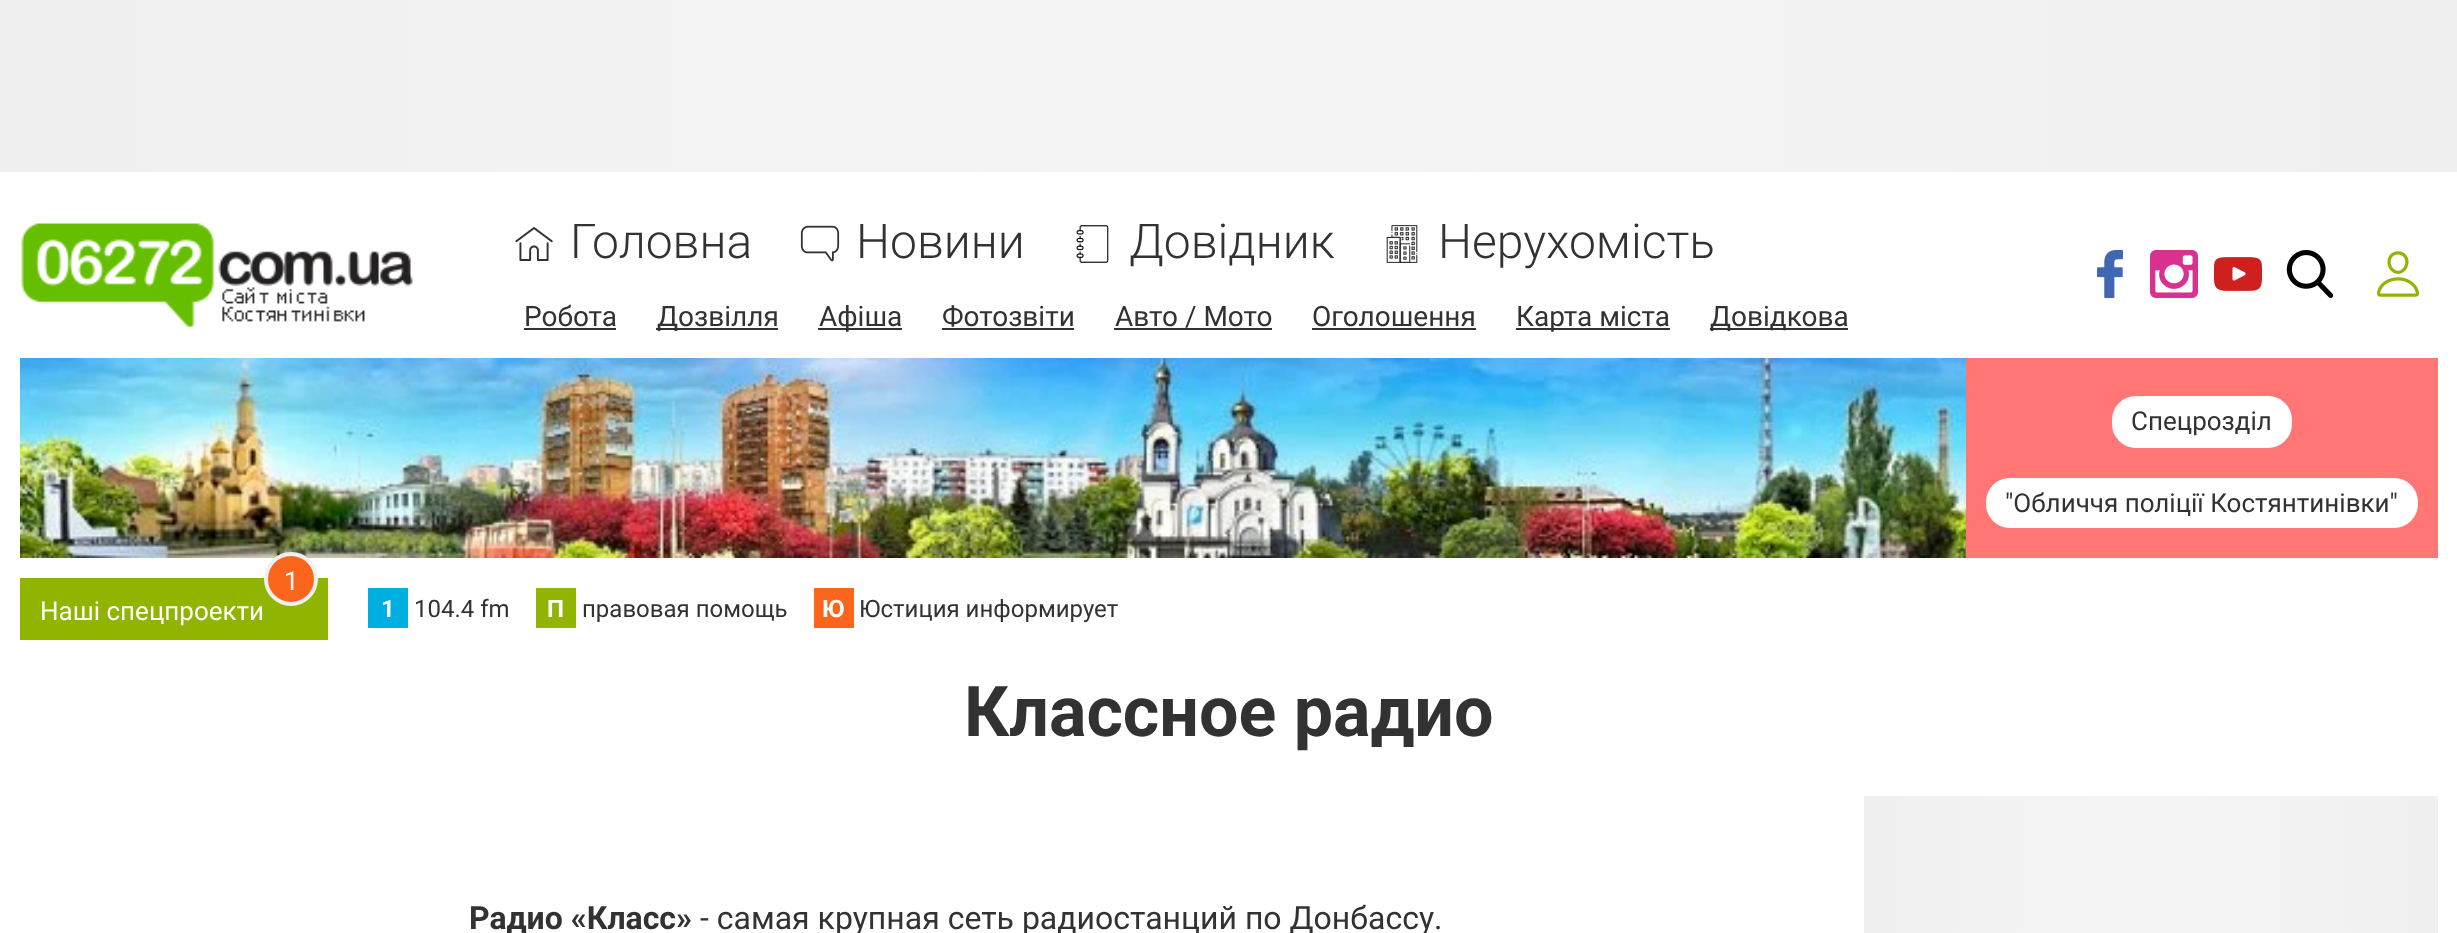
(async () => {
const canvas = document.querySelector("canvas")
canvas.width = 2457
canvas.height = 933
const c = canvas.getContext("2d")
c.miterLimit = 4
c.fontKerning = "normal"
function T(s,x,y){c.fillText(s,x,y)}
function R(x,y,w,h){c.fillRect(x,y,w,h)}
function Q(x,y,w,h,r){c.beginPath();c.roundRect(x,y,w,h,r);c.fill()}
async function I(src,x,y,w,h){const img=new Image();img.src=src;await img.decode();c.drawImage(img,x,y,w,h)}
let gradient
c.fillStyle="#fff"
R(0,0,2457,933)
gradient = c.createLinearGradient(0,86,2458,86)
gradient.addColorStop(0,"#f0f0f0")
gradient.addColorStop(.5,"#f4f4f4")
gradient.addColorStop(1,"#f0f0f0")
c.fillStyle = gradient
R(0,0,2457,172)
await I("1.png",21,222,392,107)
await I("2.png",515,227,38,34)
c.font="300 48px Roboto"
c.fillStyle="#323232"
T("Головна",570,258)
await I("3.png",800,225,40,37)
T("Новини",856,258)
await I("4.png",1076,225,33,38)
T("Довідник",1129,258)
await I("5.png",1386,225,32,38)
T("Нерухомість",1438,258)
c.font="28px Roboto"
T("Робота",524,326)
R(524,328,92,2)
R(656,328,122,2)
T("Дозвілля",657,326)
R(818,328,84,2)
T("Афіша",819,326)
T("Фотозвіти",942,326)
R(942,328,132,2)
T("Авто / Мото",1115,326)
R(1114,328,158,2)
T("Оголошення",1312,326)
R(1312,328,164,2)
R(1516,328,154,2)
T("Карта міста",1516,326)
R(1710,328,138,2)
T("Довідкова",1710,326)
await I("6.png",2097,250,26,48)
await I("7.png",2150,250,48,48)
await I("8.png",2214,257,48,34)
await I("9.png",2286,250,48,48)
await I("10.png",2376,251,44,46)
await I("11.png",20,358,1946,200)
c.fillStyle="#ff7675"
R(1966,358,472,200)
c.fillStyle="#fff"
Q(2112,396,180,52,24)
c.font="26px Roboto"
c.fillStyle="#323232"
T("Спецрозділ",2131,430)
c.fillStyle="#fff"
Q(1986,478,432,50,24)
c.fillStyle="#323232"
T("\"Обличчя поліції Костянтинівки\"",2005,512)
c.fillStyle="#90b400"
R(20,578,308,62)
c.fillStyle="#fb661c"
c.beginPath()
c.arc(291,579,25,0,7)
c.fill()
c.strokeStyle="#f0f0f0"
c.lineWidth=4
c.stroke()
c.fillStyle="#fff"
T("1",284,590)
T("Наші спецпроекти",40,620)
c.fillStyle="#00afe1"
R(368,588,40,40)
c.font="bold 24px Roboto"
c.fillStyle="#fff"
T("1",381,617)
c.font="24px Roboto"
c.fillStyle="#323232"
T("104.4 fm",414,617)
c.fillStyle="#90b400"
R(536,588,40,40)
c.font="bold 24px Roboto"
c.fillStyle="#fff"
T("П",547,617)
c.font="24px Roboto"
c.fillStyle="#323232"
T("правовая помощь",582,617)
c.fillStyle="#fb661c"
R(814,588,40,40)
c.font="bold 24px Roboto"
c.fillStyle="#fff"
T("Ю",822,617)
c.font="24px Roboto"
c.fillStyle="#323232"
T("Юстиция информирует",859,617)
c.font="bold 70px Roboto"
T("Классное радио",964,736)
c.font="bold 32px Roboto"
T("Радио «Класс»",469,929)
c.font="32px Roboto"
T("- самая крупная сеть радиостанций по Донбассу.",700,929)
gradient = c.createLinearGradient(1864,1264,2438,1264)
gradient.addColorStop(0,"#f0f0f0")
gradient.addColorStop(.5,"#f4f4f4")
gradient.addColorStop(1,"#f0f0f0")
c.fillStyle = gradient
R(1864,796,574,137)
})()
